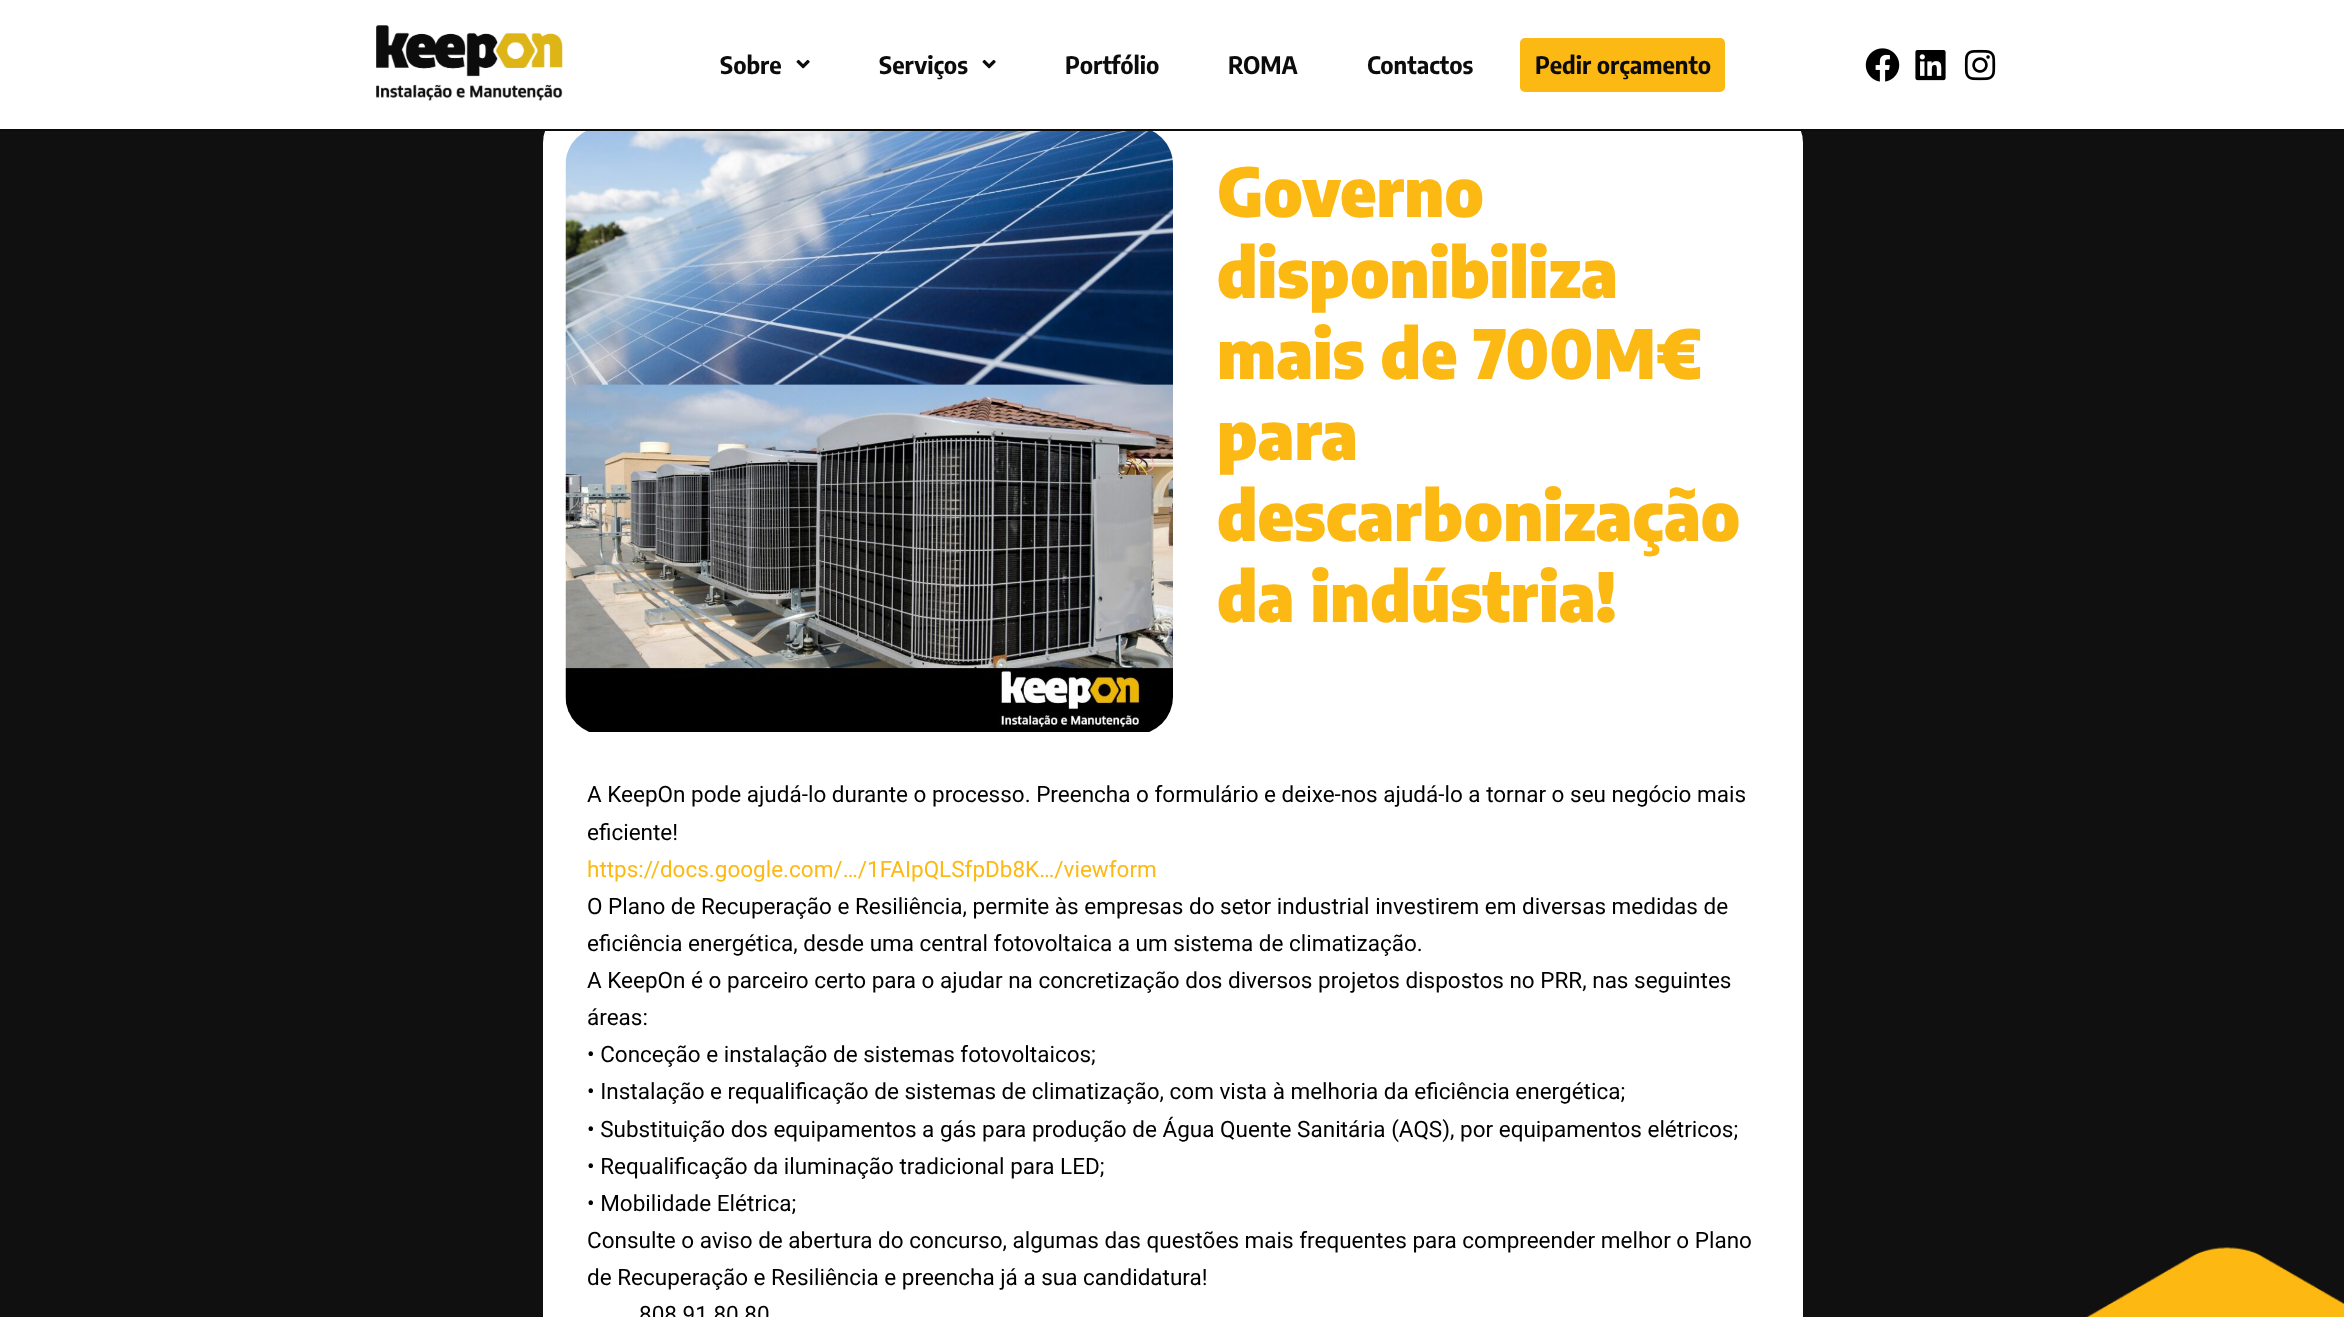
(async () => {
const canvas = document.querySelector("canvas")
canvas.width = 2344
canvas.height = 1317
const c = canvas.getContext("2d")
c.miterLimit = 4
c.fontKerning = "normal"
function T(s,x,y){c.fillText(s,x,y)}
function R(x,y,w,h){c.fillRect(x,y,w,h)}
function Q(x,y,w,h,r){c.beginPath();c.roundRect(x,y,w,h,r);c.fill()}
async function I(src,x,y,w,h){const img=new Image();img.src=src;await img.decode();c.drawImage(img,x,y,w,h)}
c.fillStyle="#111010"
R(0,0,2344,1317)
c.fillStyle="#fff"
c.beginPath()
c.roundRect(543,105,630,653,[38,0,0,0])
c.fill()
c.beginPath()
c.roundRect(1173,105,630,653,[0,38,0,0])
c.fill()
R(0,0,2344,129)
c.fillStyle="#0c0c0c"
R(0,129,2344,2)
await I("1.png",376,25,187,76)
c.font="bold 24px Encode Sans Semi Condensed"
T("Sobre",720,74)
await I("2.png",796,59,14,10)
T("Serviços",879,74)
await I("2.png",982,59,14,10)
T("Portfólio",1065,74)
T("ROMA",1228,74)
T("Contactos",1367,74)
c.fillStyle="#fdb913"
Q(1520,38,205,54,5)
c.fillStyle="#0c0c0c"
T("Pedir orçamento",1535,74)
await I("3.png",1865,48,35,34)
await I("4.png",1915,50,31,31)
await I("5.png",1964,49,32,32)
await I("6.png",565,131,608,601)
c.font="900 67.5px Encode Sans Semi Condensed"
c.fillStyle="#fdb913"
T("Governo",1217,217)
T("disponibiliza",1217,298)
T("mais de 700M€",1217,379)
T("para",1217,460)
T("descarbonização",1217,541)
T("da indústria!",1217,622)
await I("7.png",2086,1247,258,70)
c.fillStyle="#fff"
R(543,758,1260,559)
c.font="22.5px Roboto"
c.fillStyle="#000"
T("A KeepOn pode ajudá-lo durante o processo. Preencha o formulário e deixe-nos ajudá-lo a tornar o seu negócio mais",587,802)
T("eficiente!",587,840)
c.fillStyle="#fdb913"
T("https://docs.google.com/…/1FAIpQLSfpDb8K…/viewform",587,877)
c.fillStyle="#000"
T("O Plano de Recuperação e Resiliência, permite às empresas do setor industrial investirem em diversas medidas de",587,914)
T("eficiência energética, desde uma central fotovoltaica a um sistema de climatização.",587,951)
T("A KeepOn é o parceiro certo para o ajudar na concretização dos diversos projetos dispostos no PRR, nas seguintes",587,988)
T("áreas:",587,1025)
T("• Conceção e instalação de sistemas fotovoltaicos;",587,1062)
T("• Instalação e requalificação de sistemas de climatização, com vista à melhoria da eficiência energética;",587,1099)
T("• Substituição dos equipamentos a gás para produção de Água Quente Sanitária (AQS), por equipamentos elétricos;",587,1137)
T("• Requalificação da iluminação tradicional para LED;",587,1174)
T("• Mobilidade Elétrica;",587,1211)
T("Consulte o aviso de abertura do concurso, algumas das questões mais frequentes para compreender melhor o Plano",587,1248)
T("de Recuperação e Resiliência e preencha já a sua candidatura!",587,1285)
T("808 91 80 80",639,1322)
})()
